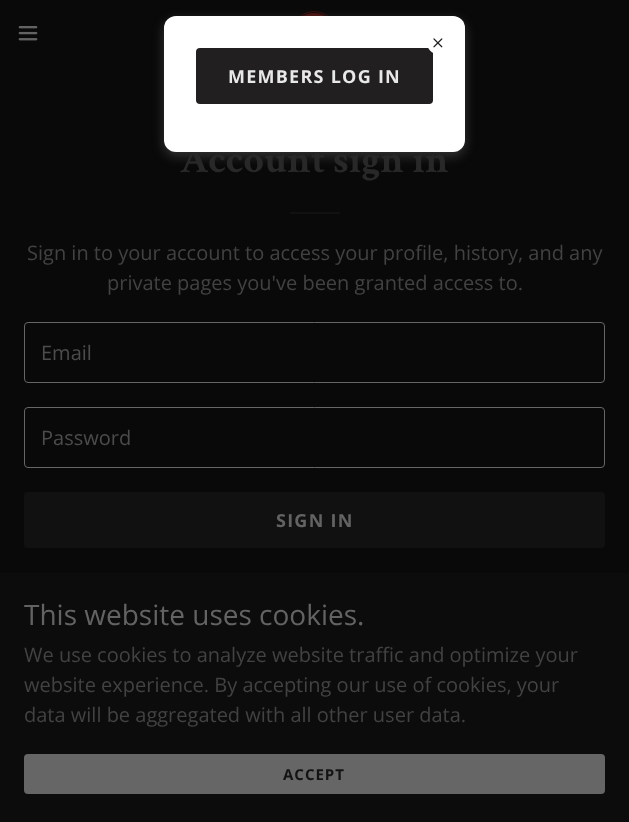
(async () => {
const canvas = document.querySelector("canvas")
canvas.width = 629
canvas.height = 822
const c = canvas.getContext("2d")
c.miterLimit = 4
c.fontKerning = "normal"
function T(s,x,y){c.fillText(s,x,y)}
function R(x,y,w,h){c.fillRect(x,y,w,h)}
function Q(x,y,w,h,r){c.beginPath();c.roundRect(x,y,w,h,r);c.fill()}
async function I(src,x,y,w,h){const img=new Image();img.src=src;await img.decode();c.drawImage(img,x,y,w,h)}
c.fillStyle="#090909"
R(0,0,629,822)
await I("1.png",298,10,32,6)
await I("2.png",18,26,20,15)
c.fillStyle="#75757566"
c.filter="blur(6px)"
c.beginPath()
c.roundRect(164,20,301,136,12)
c.fill()
c.filter="none"
c.font="bold 40px Crimson Text"
c.fillStyle="#282828"
T("Account sign in",180,172)
c.fillStyle="#fff"
Q(164,16,301,136,12)
c.fillStyle="#211f1f"
Q(196,48,237,56,4)
c.fillStyle="#fff"
c.beginPath()
c.arc(438,43,11,0,7)
c.fill()
await I("3.png",433,38,10,10)
c.letterSpacing="1.25px"
c.font="bold 18px Open Sans"
c.fillStyle="#e8e8e8"
T("MEMBERS LOG IN",228,83)
c.fillStyle="#111"
R(290,212,50,2)
c.letterSpacing="0px"
c.font="20px Open Sans"
c.fillStyle="#424242"
T("Sign in to your account to access your profile, history, and any",27,260)
T("private pages you've been granted access to.",107,290)
c.beginPath()
c.roundRect(24.5,322.5,580,60,3.5)
c.strokeStyle="#666"
c.stroke()
c.fillStyle="#4c4c4c"
T("Email",41,360)
c.beginPath()
c.roundRect(24.5,407.5,580,60,3.5)
c.stroke()
T("Password",41,445)
c.fillStyle="#121111"
Q(24,492,581,56,4)
c.letterSpacing="1.25px"
c.font="bold 18px Open Sans"
c.fillStyle="#636363"
T("SIGN IN",276,527)
c.fillStyle="#0d0c0c"
R(0,573,629,249)
c.letterSpacing="0px"
c.font="28px Open Sans"
c.fillStyle="#636363"
T("This website uses cookies.",24,625)
c.font="20px Open Sans"
c.fillStyle="#424242"
T("We use cookies to analyze website traffic and optimize your",24,662)
T("website experience. By accepting our use of cookies, your",24,692)
T("data will be aggregated with all other user data.",24,722)
c.fillStyle="#666"
Q(24,754,581,40,4)
c.letterSpacing="1px"
c.font="bold 15px Open Sans"
c.fillStyle="#131313"
T("ACCEPT",283,780)
})()
